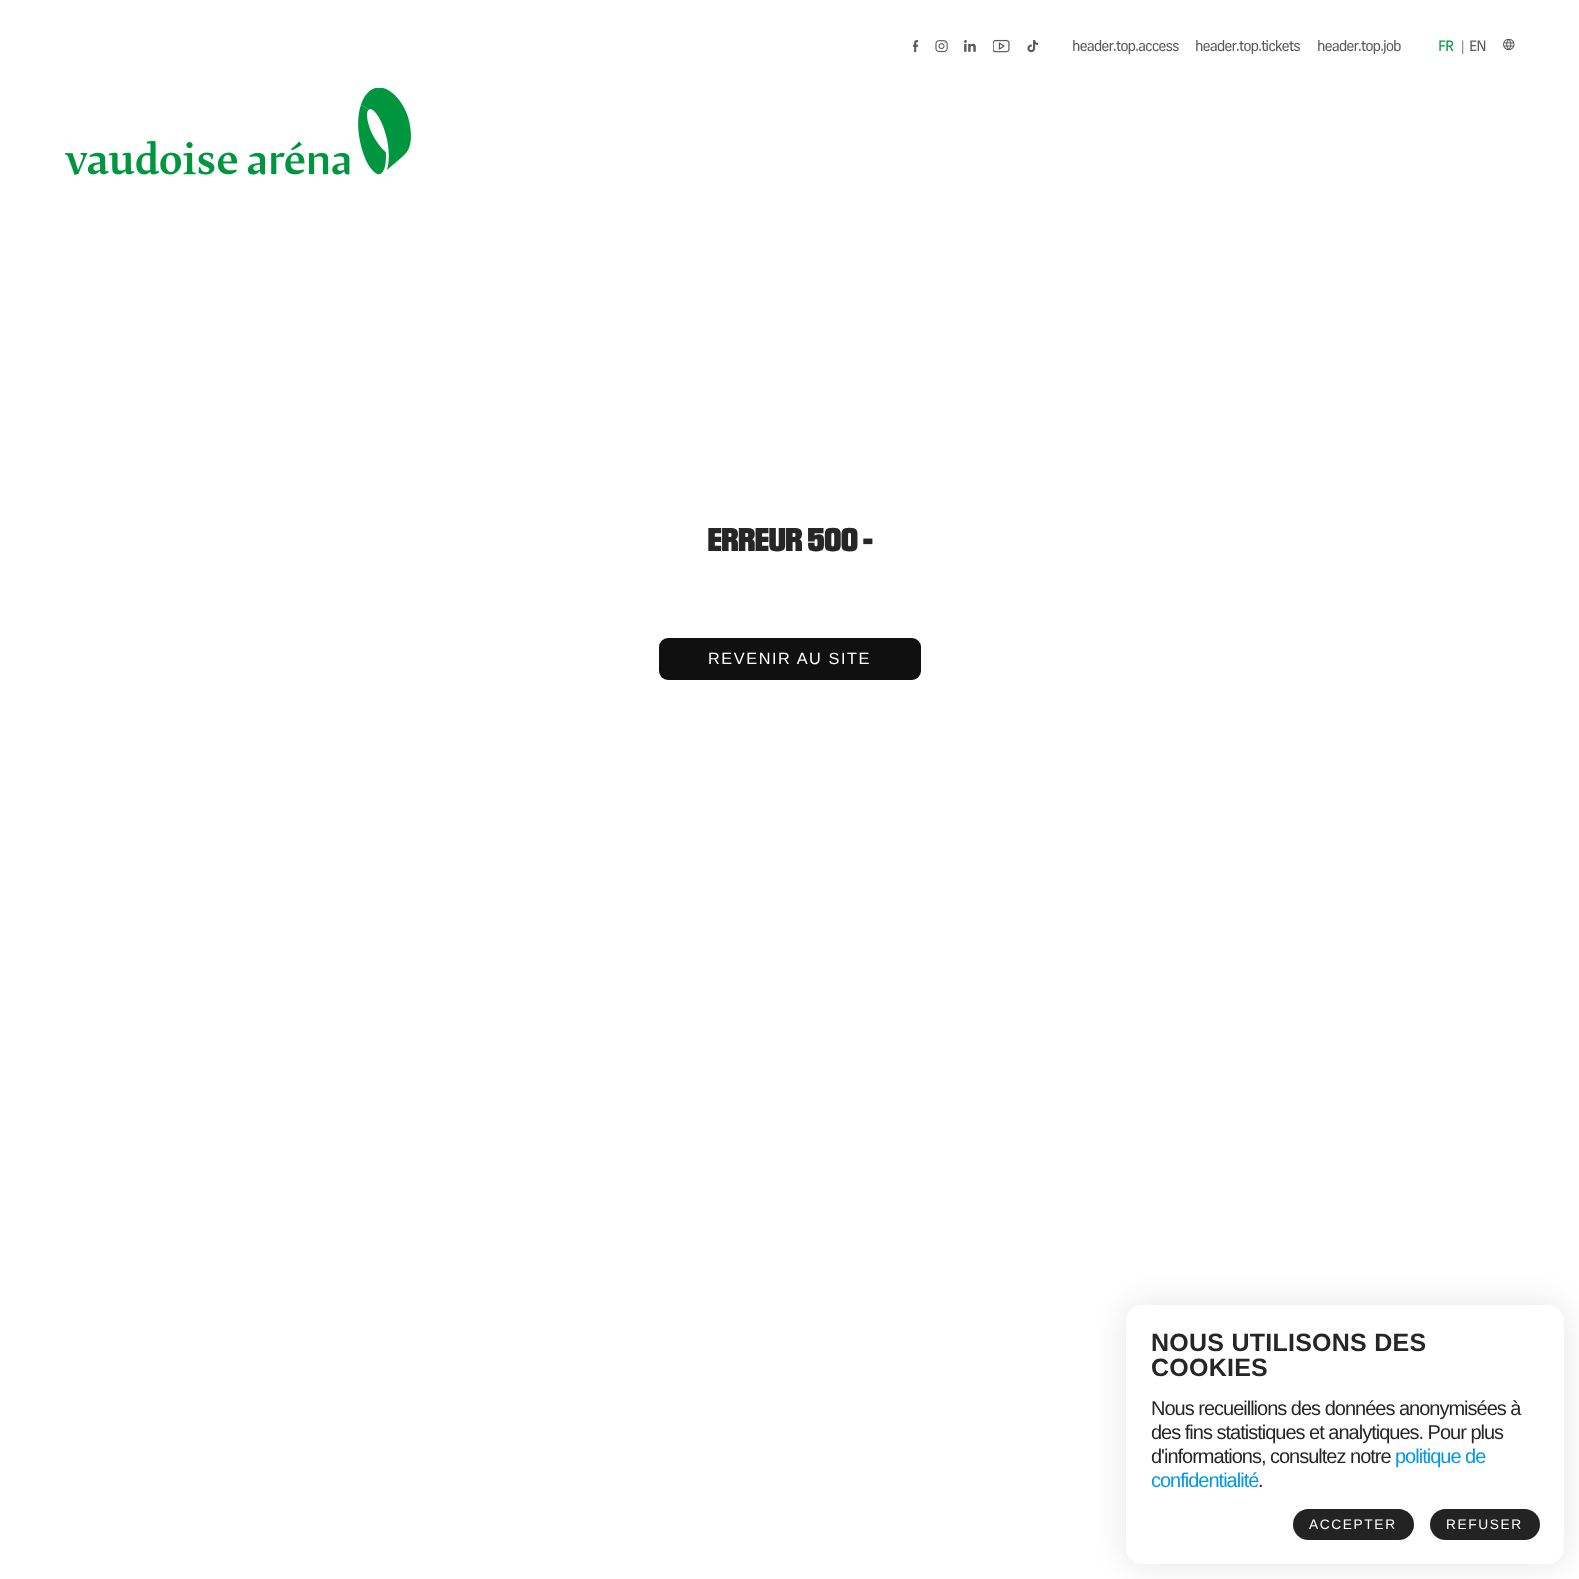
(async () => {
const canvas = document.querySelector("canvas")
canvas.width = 1579
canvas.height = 1579
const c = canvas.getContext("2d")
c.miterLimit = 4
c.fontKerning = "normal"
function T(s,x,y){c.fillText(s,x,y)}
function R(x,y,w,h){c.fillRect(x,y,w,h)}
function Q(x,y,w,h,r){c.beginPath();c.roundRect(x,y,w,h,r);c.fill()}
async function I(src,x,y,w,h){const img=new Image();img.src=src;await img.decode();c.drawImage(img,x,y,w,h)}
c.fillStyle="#fff"
R(0,0,1579,1579)
await I("1.png",913,40,6,13)
await I("2.png",935,40,13,13)
await I("3.png",964,40,12,12)
await I("4.png",993,39,17,14)
await I("5.png",1027,40,11,13)
c.letterSpacing="-1px"
c.font="14.5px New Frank"
c.fillStyle="#5a5a5a"
T("header.top.access",1072,51)
T("header.top.tickets",1195,51)
T("header.top.job",1317,51)
c.fillStyle="#009940"
T("FR",1438,51)
c.font="300 14.5px New Frank"
c.fillStyle="#5a5a5a"
T("|",1461,51)
c.font="14.5px New Frank"
T("EN",1469,51)
await I("6.png",1503,39,12,12)
await I("7.png",65,88,346,87)
c.letterSpacing="0.25px"
c.font="900 32.5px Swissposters"
c.fillStyle="#262626"
T("ERREUR 500 -",708,551)
c.fillStyle="#101010"
Q(659,638,262,42,9)
c.letterSpacing="1.6px"
c.font="16.25px Liberation Sans"
c.fillStyle="#fefefe"
T("REVENIR AU SITE",708,664)
c.fillStyle="#0000001a"
c.filter="blur(16px)"
c.beginPath()
c.roundRect(1126,1305,438,259,16)
c.fill()
c.filter="none"
c.fillStyle="#fff"
Q(1126,1305,438,259,16)
c.letterSpacing="0.25px"
c.font="bold 25px Liberation Sans"
c.fillStyle="#262626"
T("NOUS UTILISONS DES",1151,1351)
T("COOKIES",1151,1376)
c.letterSpacing="-1px"
c.font="20px Liberation Sans"
T("Nous recueillions des données anonymisées à",1151,1415)
T("des fins statistiques et analytiques. Pour plus",1151,1439)
T("d'informations, consultez notre",1151,1463)
c.fillStyle="#0099e5"
T("politique de",1395,1463)
T("confidentialité",1151,1487)
c.fillStyle="#262626"
T(".",1258,1487)
c.fillStyle="#232323"
Q(1293,1509,121,31,15.5)
c.letterSpacing="1.6px"
c.font="13.75px Liberation Sans"
c.fillStyle="#fefefe"
T("ACCEPTER",1309,1529)
c.fillStyle="#232323"
Q(1430,1509,110,31,15.5)
c.fillStyle="#fefefe"
T("REFUSER",1446,1529)
})()
